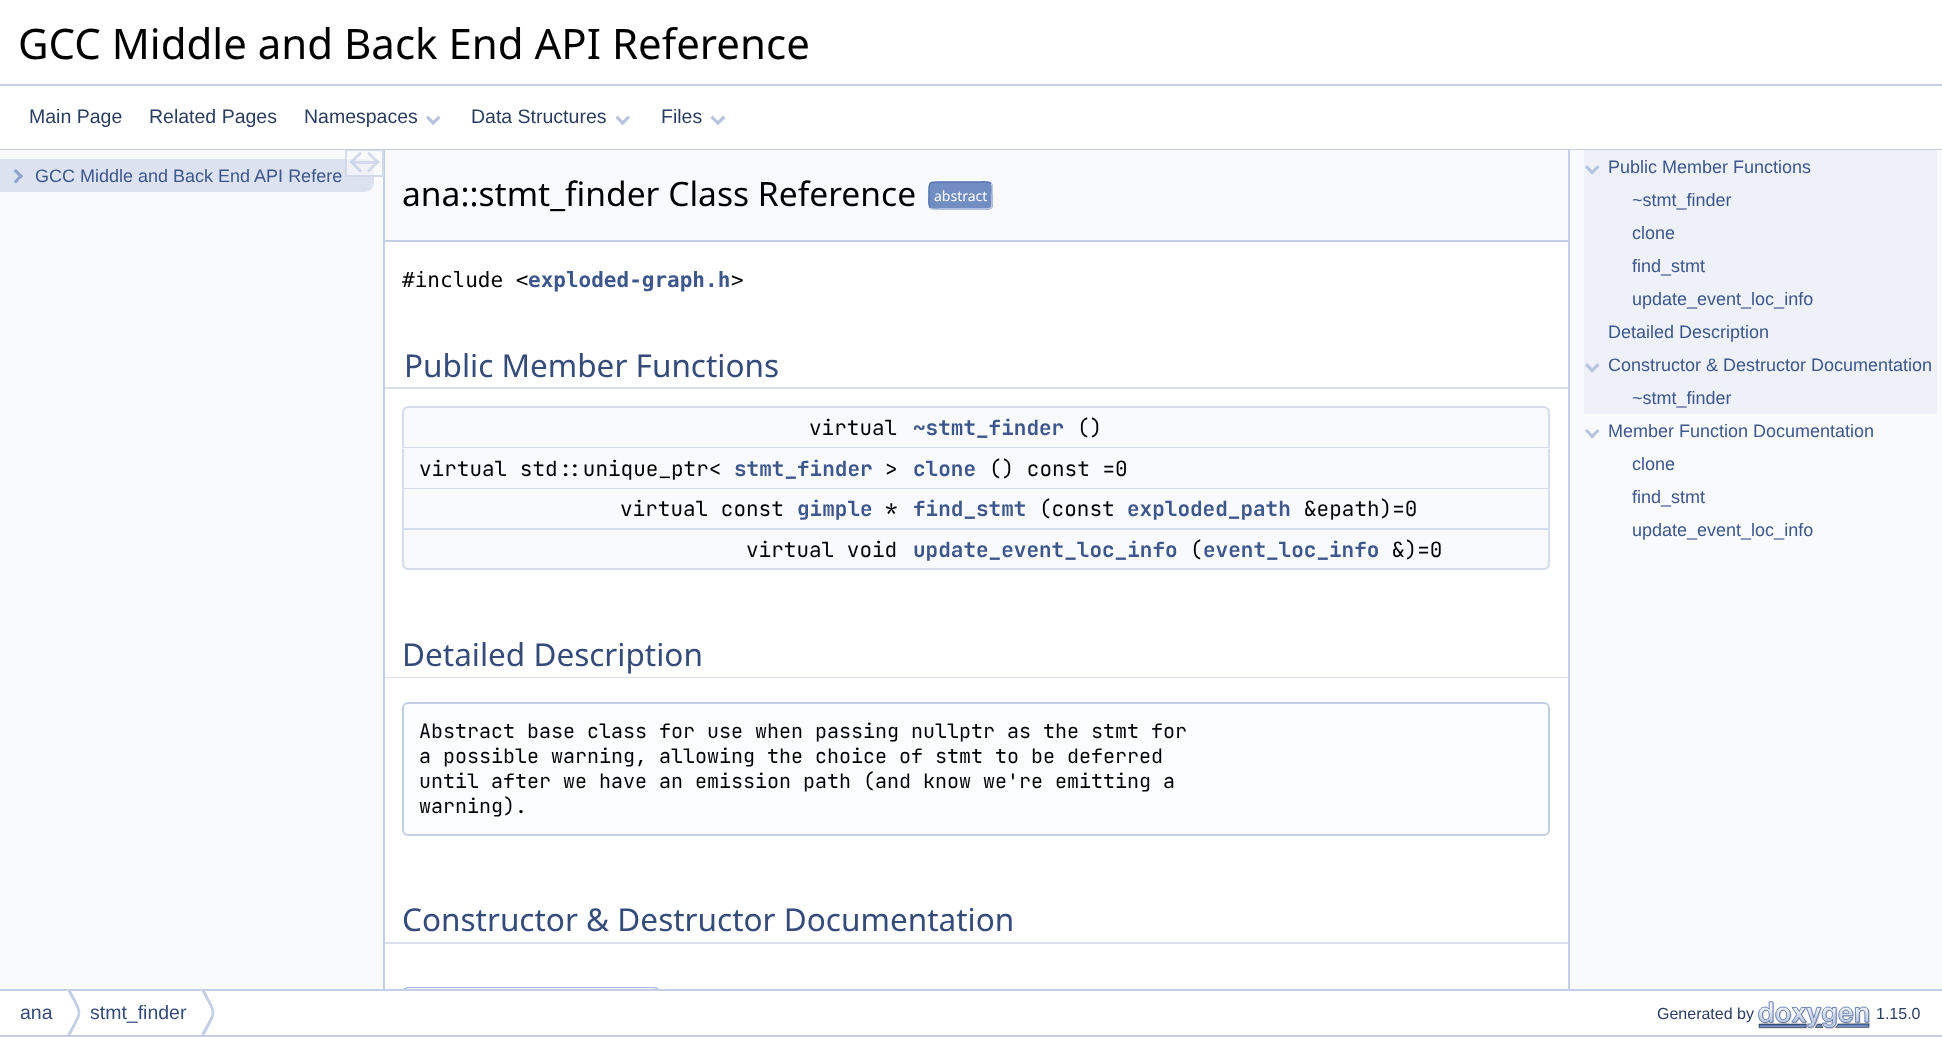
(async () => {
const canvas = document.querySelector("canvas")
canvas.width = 1942
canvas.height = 1037
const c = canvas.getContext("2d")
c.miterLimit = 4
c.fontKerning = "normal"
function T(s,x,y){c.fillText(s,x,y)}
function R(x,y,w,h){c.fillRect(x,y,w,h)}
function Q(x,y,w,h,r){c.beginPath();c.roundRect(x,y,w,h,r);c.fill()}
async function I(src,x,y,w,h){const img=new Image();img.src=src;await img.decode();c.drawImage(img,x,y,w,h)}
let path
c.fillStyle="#fff"
R(0,0,1942,1037)
c.fillStyle="#c4cfe5"
R(0,84,1942,2)
c.font="42px Noto Sans"
c.fillStyle="#000"
T("GCC Middle and Back End API Reference",18,59)
c.fillStyle="#c4cfe5"
R(0,149,1942,1)
c.font="19.5px Liberation Sans"
c.fillStyle="#2a3d61"
T("Main Page",29,123)
T("Related Pages",149,123)
T("Namespaces",304,123)
c.fillStyle="#b6c4df"
path = new Path2D("M438.5 115.5l2 2.5l-7.5 7l-2-2z")
c.fill(path)
path = new Path2D("M428 115.5l7.5 7.5l-2.5 2l-7-7z")
c.fill(path)
c.fillStyle="#2a3d61"
T("Data Structures",471,123)
c.fillStyle="#b6c4df"
path = new Path2D("M628 115.5l2 2.5l-7.5 7l-2-2z")
c.fill(path)
path = new Path2D("M617.5 115.5l7.5 7.5l-2.5 2l-7-7z")
c.fill(path)
c.fillStyle="#2a3d61"
T("Files",661,123)
c.fillStyle="#b6c4df"
path = new Path2D("M723 115.5l2.5 2.5l-7.5 7l-2-2z")
c.fill(path)
path = new Path2D("M712.5 115.5l7.5 7.5l-2 2l-7.5-7z")
c.fill(path)
c.fillStyle="#f9fafc"
R(0,150,383,839)
c.fillStyle="#c4cfe5"
R(384,240,1184,2)
c.fillStyle="#d9e0ee"
path = new Path2D("M384 338v51h1145v-2h-1125v-49z")
c.fill(path)
path = new Path2D("M384 627v51h1148v-2h-1130v-49z")
c.fill(path)
path = new Path2D("M420 676v2h1148v-51h-18v49z")
c.fill(path)
c.fillStyle="#fff"
path = new Path2D("M384 626v51h1148v-1h-1130v-50z")
c.fill(path)
c.fillStyle="#d9e0ee"
path = new Path2D("M384 893v51h1148v-2h-1130v-49z")
c.fill(path)
c.fillStyle="#c4cfe5"
R(383,150,2,839)
c.fillStyle="#dce2ef"
c.beginPath()
c.roundRect(0,159,374,33,[0,9,9,0])
c.fill()
c.fillStyle="#90a5ce"
path = new Path2D("M13.5 171l2.5-2l7 7l-2 2.5z")
c.fill(path)
path = new Path2D("M13.5 181.5l7.5-7.5l2 2l-7 7.5z")
c.fill(path)
c.font="18px Liberation Sans"
c.fillStyle="#3d578c"
T("GCC Middle and Back End API Refere",35,182)
c.fillStyle="#f9fafcb3"
R(345,150,39,27)
c.save()
c.beginPath()
c.rect(0,150,393,839)
c.clip()
c.strokeStyle="#c4cfe5b3"
c.lineWidth=2
c.strokeRect(346,150,37,26)
c.restore()
c.fillStyle="#c4cfe5b3"
path = new Path2D("M349.5 162l10.5-10.5l2 2l-10.5 10.5z")
c.fill(path)
c.fillStyle="#cbd5e8"
path = new Path2D("M349.5 162l2-2l10.5 10.5l-2 2z")
c.fill(path)
c.fillStyle="#d4dcec"
path = new Path2D("M367 153.5l2-2l10.5 10.5l-2 2z")
c.fill(path)
c.fillStyle="#c4cfe5b3"
path = new Path2D("M367 170.5l10.5-10.5l2 2l-10.5 10.5z")
c.fill(path)
c.fillStyle="#f9fafcb3"
R(353,161,24,3)
c.fillStyle="#c4cfe5b3"
R(353,161,24,3)
c.fillStyle="#f9fafc"
R(385,150,1183,90)
c.font="33.6px Noto Sans"
c.fillStyle="#000"
T("ana::stmt_finder Class Reference",402,206)
c.fillStyle="#728dc1"
Q(929,182,64,28,5)
path = new Path2D("M991 183.5c2.5 2 1 9.5 1 12.5c0 14.5 2 13-13 13h-37c-.5 0-9 1.5-11.5-1")
c.strokeStyle="#c4cfe5"
c.lineWidth=1.5
c.stroke(path)
path = new Path2D("M930.5 208c-2.5-2-1.5-9.5-1.5-12c0-15-1.5-14 13-14h37c1 0 9.5-1 12 1.5")
c.strokeStyle="#5373b4"
c.stroke(path)
c.font="14px Noto Sans"
c.fillStyle="#fff"
T("abstract",934,201)
c.font="21px DejaVu Sans Mono"
c.fillStyle="#000"
T("#include <",402,287)
c.font="bold 21px DejaVu Sans Mono"
c.fillStyle="#3d578c"
T("exploded-graph.h",528,287)
c.font="21px DejaVu Sans Mono"
c.fillStyle="#000"
T(">",731,287)
c.fillStyle="#d9e0ee"
path = new Path2D("M423 387v2h1145v-51h-20v49z")
c.fill(path)
c.fillStyle="#fff"
R(385,338,19,49)
R(1548,338,20,49)
c.font="31.5px Noto Sans"
c.fillStyle="#354c7b"
T("Public Member Functions",404,377)
c.fillStyle="#f9fafc"
c.beginPath()
c.roundRect(402,407,510,42,[6,0,0,0])
c.fill()
c.fillStyle="#d5ddec"
path = new Path2D("M408 406h504v42h-510v-36c0-3 3-6 6-6zm0 2h504v39h-508v-35c0-2 2-4 4-4z")
c.fill(path,"evenodd")
c.font="21px JetBrains Mono"
c.fillStyle="#000"
T("virtual",809,435)
c.fillStyle="#f9fafc"
c.beginPath()
c.roundRect(912,407,638,42,[0,6,0,0])
c.fill()
c.fillStyle="#d5ddec"
path = new Path2D("M912 406h632c3 0 6 3 6 6v36h-638zm0 2h632c2 0 4 2 4 4v35h-636z")
c.fill(path,"evenodd")
c.font="bold 21px JetBrains Mono"
c.fillStyle="#3d578c"
T("~stmt_finder",913,435)
c.font="21px JetBrains Mono"
c.fillStyle="#000"
T("()",1077,435)
c.fillStyle="#f9fafc"
R(404,449,1144,39)
c.fillStyle="#d5ddec"
R(402,488,510,1)
R(402,449,2,40)
c.fillStyle="#000"
T("virtual std::unique_ptr<",419,476)
c.font="bold 21px JetBrains Mono"
c.fillStyle="#3d578c"
T("stmt_finder",734,476)
c.font="21px JetBrains Mono"
c.fillStyle="#000"
T(">",885,476)
c.fillStyle="#d5ddec"
R(1548,449,2,81)
R(912,488,638,1)
c.font="bold 21px JetBrains Mono"
c.fillStyle="#3d578c"
T("clone",913,476)
c.font="21px JetBrains Mono"
c.fillStyle="#000"
T("() const =0",989,476)
c.fillStyle="#f9fafc"
R(404,489,1144,39)
c.fillStyle="#d5ddec"
R(402,528,1148,2)
R(402,489,2,41)
c.fillStyle="#000"
T("virtual const",620,516)
c.font="bold 21px JetBrains Mono"
c.fillStyle="#3d578c"
T("gimple",797,516)
c.font="21px JetBrains Mono"
c.fillStyle="#000"
T("*",885,516)
c.font="bold 21px JetBrains Mono"
c.fillStyle="#3d578c"
T("find_stmt",913,516)
c.font="21px JetBrains Mono"
c.fillStyle="#000"
T("(const",1039,516)
c.font="bold 21px JetBrains Mono"
c.fillStyle="#3d578c"
T("exploded_path",1127,516)
c.font="21px JetBrains Mono"
c.fillStyle="#000"
T("&epath)=0",1304,516)
c.fillStyle="#f9fafc"
c.beginPath()
c.roundRect(402,530,510,40,[0,0,0,6])
c.fill()
c.fillStyle="#d5ddec"
path = new Path2D("M402 530h510v40h-504c-3 0-6-3-6-6zm2 0h508v38h-504c-2 0-4-2-4-4z")
c.fill(path,"evenodd")
c.fillStyle="#000"
T("virtual void",746,557)
c.fillStyle="#f9fafc"
c.beginPath()
c.roundRect(912,530,638,40,[0,0,6,0])
c.fill()
c.fillStyle="#d5ddec"
path = new Path2D("M912 530h638v34c0 3-3 6-6 6h-632zm0 0h636v34c0 2-2 4-4 4h-632z")
c.fill(path,"evenodd")
c.font="bold 21px JetBrains Mono"
c.fillStyle="#3d578c"
T("update_event_loc_info",913,557)
c.font="21px JetBrains Mono"
c.fillStyle="#000"
T("(",1190,557)
c.font="bold 21px JetBrains Mono"
c.fillStyle="#3d578c"
T("event_loc_info",1203,557)
c.font="21px JetBrains Mono"
c.fillStyle="#000"
T("&)=0",1392,557)
c.fillStyle="#fff"
path = new Path2D("M420 676v1h1148v-51h-18v50z")
c.fill(path)
c.font="31.5px Noto Sans"
c.fillStyle="#354c7b"
T("Detailed Description",402,666)
c.fillStyle="#fbfcfd"
c.beginPath()
c.roundRect(403,703,1146,132,5)
c.fill()
c.strokeStyle="#c4cfe5"
c.lineWidth=2
c.stroke()
c.font="20px JetBrains Mono"
c.fillStyle="#000"
T("Abstract base class for use when passing nullptr as the stmt for",419,738)
T("a possible warning, allowing the choice of stmt to be deferred",419,763)
T("until after we have an emission path (and know we're emitting a",419,788)
T("warning).",419,813)
c.fillStyle="#d9e0ee"
path = new Path2D("M420 942v2h1148v-51h-18v49z")
c.fill(path)
c.fillStyle="#fff"
R(385,893,17,49)
R(1550,893,18,49)
c.font="31.5px Noto Sans"
c.fillStyle="#354c7b"
T("Constructor & Destructor Documentation",402,931)
c.fillStyle="#eef1f7"
c.beginPath()
c.roundRect(402,987,258,2,[6,6,0,0])
c.fill()
c.fillStyle="#a8b8d9"
path = new Path2D("M408 987h246c3 0 6 3 6 6v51h-258v-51c0-3 3-6 6-6zm0 1h246c2 0 4 3 4 5v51h-254v-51c0-2 2-5 4-5z")
c.fill(path,"evenodd")
c.fillStyle="#f9fafc"
R(1570,150,372,839)
c.fillStyle="#c4cfe5"
R(1568,150,2,839)
c.fillStyle="#eef1f7"
R(1584,150,353,264)
c.fillStyle="#b6c4df"
path = new Path2D("M1597.5 165l2 2.5l-7.5 7l-2-2z")
c.fill(path)
path = new Path2D("M1587 165l7.5 7.5l-2.5 2l-7-7z")
c.fill(path)
c.font="18px Liberation Sans"
c.fillStyle="#3d578c"
T("Public Member Functions",1608,173)
T("~stmt_finder",1632,206)
T("clone",1632,239)
T("find_stmt",1632,272)
T("update_event_loc_info",1632,305)
T("Detailed Description",1608,338)
c.fillStyle="#b6c4df"
path = new Path2D("M1597.5 363l2 2.5l-7.5 7l-2-2z")
c.fill(path)
path = new Path2D("M1587 363l7.5 7.5l-2.5 2l-7-7z")
c.fill(path)
c.fillStyle="#3d578c"
T("Constructor & Destructor Documentation",1608,371)
T("~stmt_finder",1632,404)
c.fillStyle="#b6c4df"
path = new Path2D("M1597.5 429l2 2l-7.5 7.5l-2-2z")
c.fill(path)
path = new Path2D("M1587 429l7.5 7.5l-2.5 2l-7-7.5z")
c.fill(path)
c.fillStyle="#3d578c"
T("Member Function Documentation",1608,437)
T("clone",1632,470)
T("find_stmt",1632,503)
T("update_event_loc_info",1632,536)
c.fillStyle="#fff"
R(402,991,258,44)
c.fillStyle="#c4cfe5"
R(0,989,1942,2)
R(0,1035,1942,2)
c.font="19.5px Liberation Sans"
c.fillStyle="#354c7b"
T("ana",20,1019)
c.save()
c.beginPath()
c.rect(0,990,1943,45)
c.clip()
c.fillStyle="#c4cfe5"
path = new Path2D("M69 987l-2 3c14 27 14 18 0 45l2 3c15-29 15-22 0-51z")
c.fill(path)
c.restore()
c.fillStyle="#fff"
path = new Path2D("M67 990c14 28 14 17 0 45c-6-12-6-33 0-45z")
c.fill(path)
c.fillStyle="#354c7b"
T("stmt_finder",90,1019)
c.save()
c.beginPath()
c.rect(0,990,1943,45)
c.clip()
c.fillStyle="#c4cfe5"
path = new Path2D("M203 987l-2 3c14 27 14 18 0 44l2 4c15-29 15-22 0-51z")
c.fill(path)
c.restore()
c.fillStyle="#fff"
path = new Path2D("M201 990c14 28 14 17 0 45c-6-12-6-33 0-45z")
c.fill(path)
c.font="16px Liberation Sans"
c.fillStyle="#2a3d61"
T("Generated by",1657,1019)
await I("1.png",1758,1001,112,29)
T("1.15.0",1876,1019)
})()
